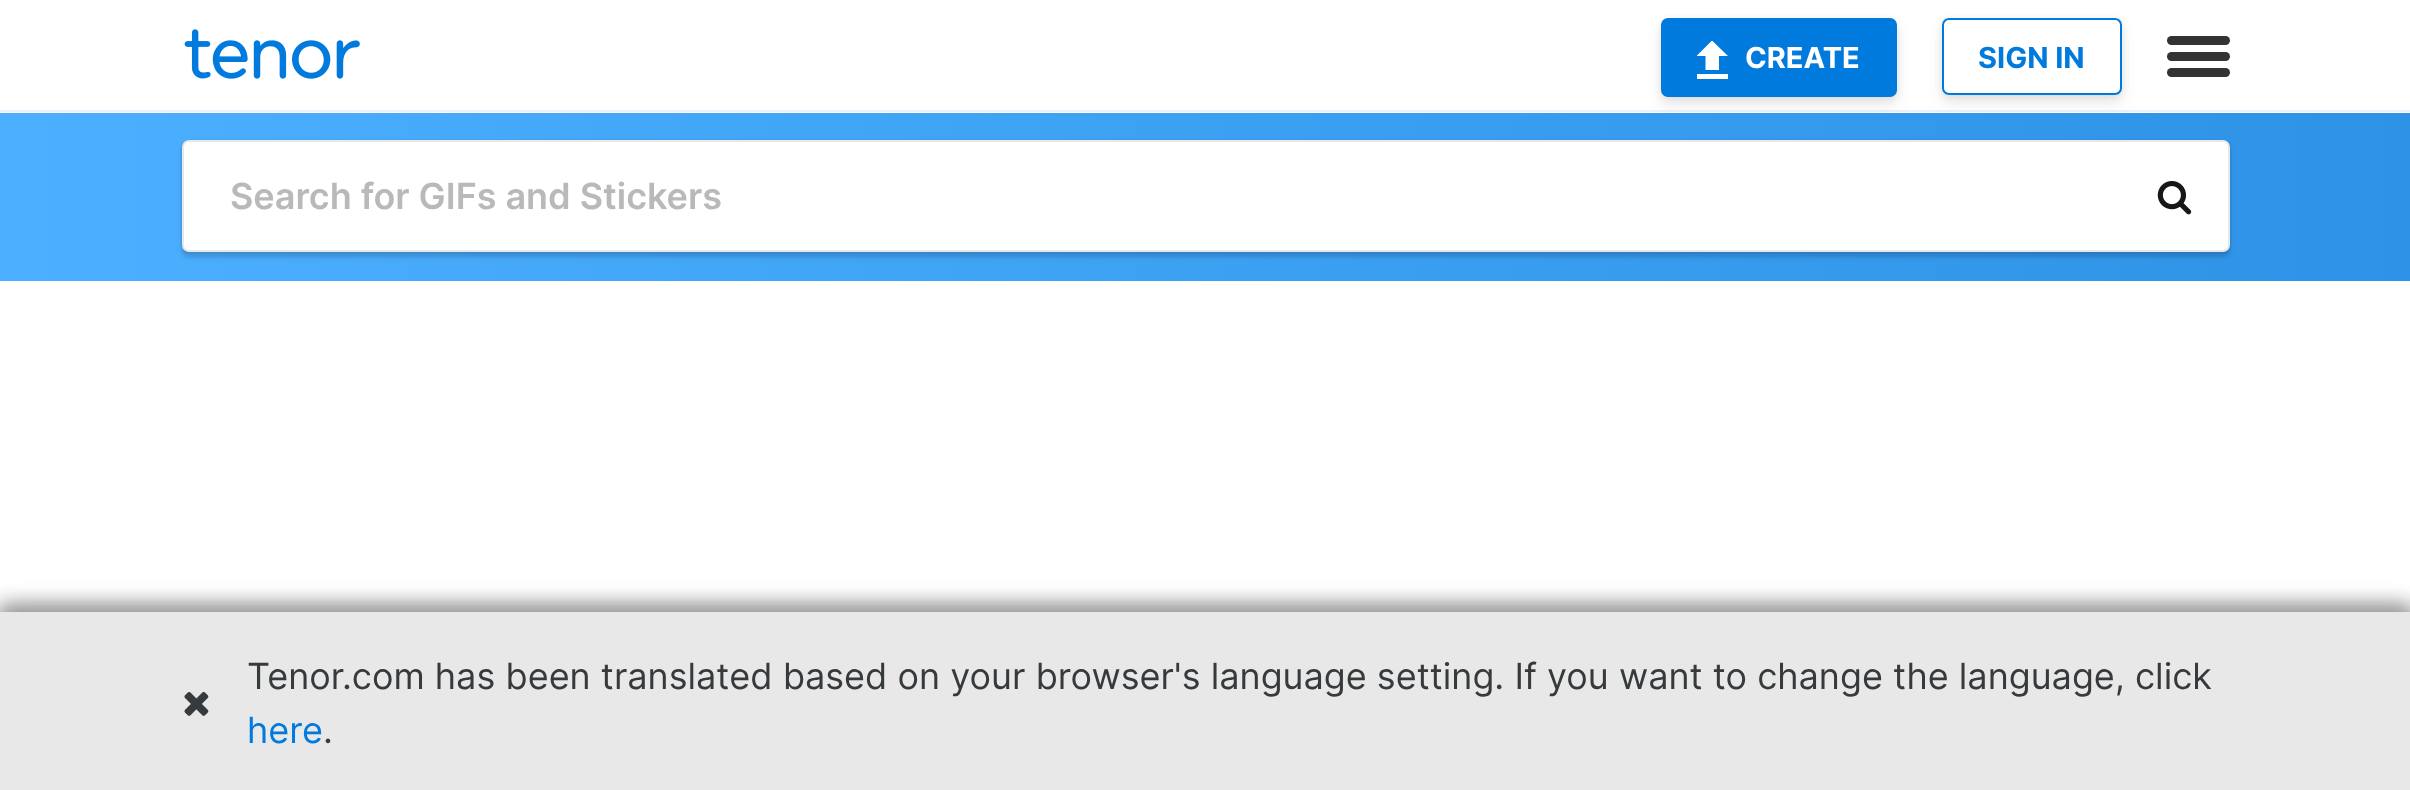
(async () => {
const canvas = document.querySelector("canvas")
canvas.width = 2410
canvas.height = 790
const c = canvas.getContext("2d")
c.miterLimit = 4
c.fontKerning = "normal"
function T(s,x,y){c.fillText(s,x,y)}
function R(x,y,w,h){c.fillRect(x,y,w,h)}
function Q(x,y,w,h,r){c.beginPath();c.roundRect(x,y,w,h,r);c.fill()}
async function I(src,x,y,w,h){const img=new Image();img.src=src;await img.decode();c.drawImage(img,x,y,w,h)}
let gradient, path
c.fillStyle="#fff"
R(0,0,2410,790)
c.fillStyle="#ebf2f7"
R(0,110,2410,2)
await I("1.png",184,29,176,50)
c.fillStyle="#53535c1c"
c.filter="blur(7px)"
c.beginPath()
c.roundRect(1661,27,236,79,7)
c.fill()
c.filter="none"
c.fillStyle="#00000014"
c.filter="blur(3.5px)"
c.beginPath()
c.roundRect(1661,20,236,79,7)
c.fill()
c.filter="none"
c.fillStyle="#007add"
c.beginPath()
c.roundRect(1662,19,234,77,6)
c.fill()
c.strokeStyle="#007add"
c.lineWidth=2
c.stroke()
c.save()
c.beginPath()
c.rect(1697,41,31,38)
c.clip()
c.fillStyle="#fff"
path = new Path2D("M1705.5 70h13.5v-14h9l-16-15.5l-15.5 15.5h9zm-9 4h31.5v5h-31.5z")
c.fill(path)
c.restore()
c.font="bold 29px Inter"
c.fillStyle="#fff"
T("CREATE",1745,68)
c.fillStyle="#53535c1c"
c.filter="blur(7px)"
c.beginPath()
c.roundRect(1942,27,180,77,7)
c.fill()
c.filter="none"
c.fillStyle="#00000014"
c.filter="blur(3.5px)"
c.beginPath()
c.roundRect(1942,20,180,77,7)
c.fill()
c.filter="none"
c.fillStyle="#fff"
c.beginPath()
c.roundRect(1943,19,178,75,6)
c.fill()
c.stroke()
c.fillStyle="#007add"
T("SIGN IN",1978,68)
c.fillStyle="#333"
Q(2167,52,63,9,4.5)
Q(2167,36,63,9,4.5)
Q(2167,68,63,9,4.5)
gradient = c.createLinearGradient(0,197,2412,197)
gradient.addColorStop(0,"#4cafff")
gradient.addColorStop(1,"#2e93e6")
c.fillStyle = gradient
R(0,113,2410,168)
c.fillStyle="#00000014"
c.filter="blur(1px)"
c.beginPath()
c.roundRect(182,140,2048,112,7)
c.fill()
c.filter="none"
c.fillStyle="#00000029"
c.filter="blur(2px)"
c.beginPath()
c.roundRect(182,144,2048,113,7)
c.fill()
c.filter="none"
c.fillStyle="#fff"
c.beginPath()
c.roundRect(183,141,2046,110,6)
c.fill()
c.strokeStyle="#e8e8e8"
c.stroke()
c.font="600 36px Inter"
c.fillStyle="#b9b9b9"
T("Search for GIFs and Stickers",230,209)
await I("2.png",2157,181,35,34)
c.fillStyle="#999"
c.filter="blur(11px)"
c.beginPath()
c.rect(0,608,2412,180)
c.fill()
c.filter="none"
c.filter="blur(11px)"
c.beginPath()
c.rect(0,608,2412,180)
c.fill()
c.filter="none"
c.fillStyle="#e8e8e8"
R(0,612,2410,178)
await I("3.png",184,692,25,24)
c.font="36px Inter"
c.fillStyle="#373a3c"
T("Tenor.com has been translated based on your browser's language setting. If you want to change the language, click",247,689)
c.fillStyle="#007add"
T("here",247,743)
c.fillStyle="#373a3c"
T(".",323,743)
})()
